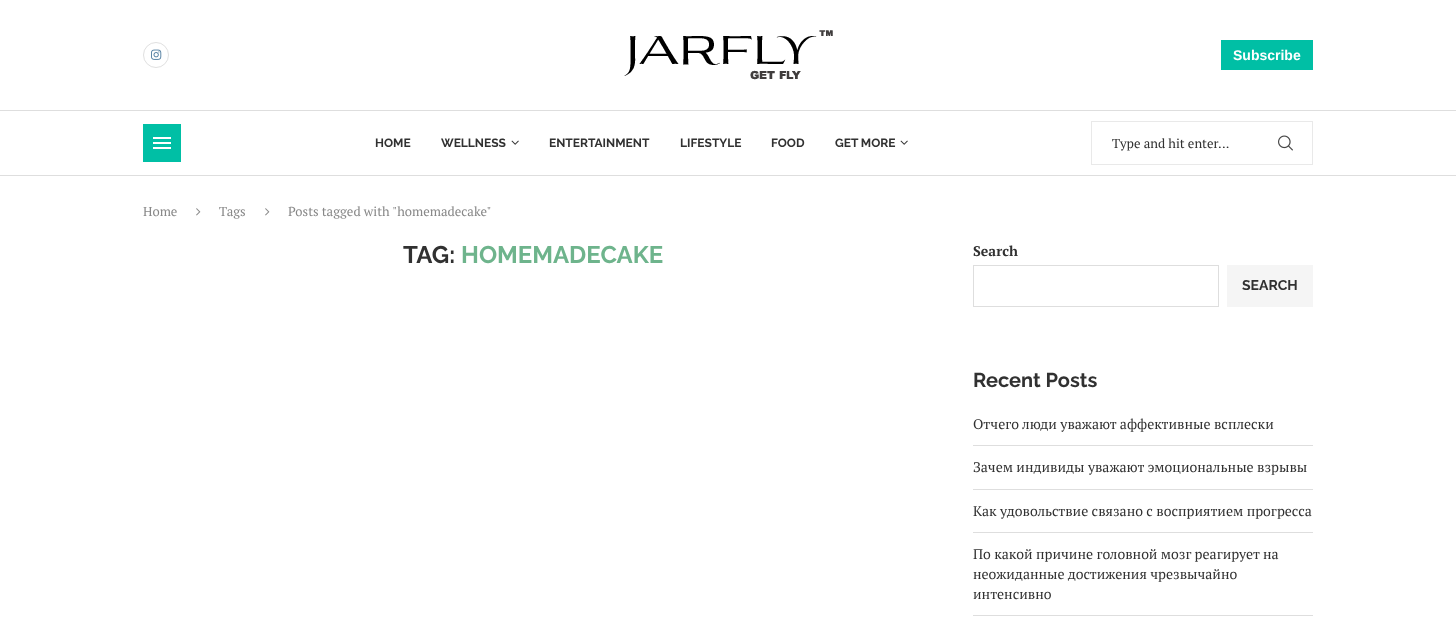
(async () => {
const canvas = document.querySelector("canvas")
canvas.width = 1456
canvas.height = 637
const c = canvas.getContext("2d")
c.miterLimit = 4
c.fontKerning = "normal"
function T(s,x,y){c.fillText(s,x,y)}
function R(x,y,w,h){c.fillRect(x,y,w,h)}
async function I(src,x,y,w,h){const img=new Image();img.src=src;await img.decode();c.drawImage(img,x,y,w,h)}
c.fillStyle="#fff"
R(0,0,1456,637)
c.beginPath()
c.arc(156,55,12.5,0,7)
c.strokeStyle="#e0e0e0"
c.stroke()
await I("1.png",151,49,11,11)
await I("2.png",624,30,209,50)
c.fillStyle="#00bfa5"
R(1221,40,92,30)
c.font="bold 14px Liberation Sans"
c.fillStyle="#fff"
T("Subscribe",1233,60)
c.fillStyle="#dedede"
R(0,110,1456,1)
R(0,175,1456,1)
c.fillStyle="#00bfa5"
R(143,124,38,38)
c.fillStyle="#fff"
R(153,137,18,2)
R(153,147,18,2)
R(153,142,18,2)
c.font="bold 12px Raleway"
c.fillStyle="#313131"
T("HOME",375,147)
T("WELLNESS",441,147)
await I("3.png",511,140,8,5)
T("ENTERTAINMENT",549,147)
T("LIFESTYLE",680,147)
T("FOOD",771,147)
T("GET MORE",835,147)
await I("3.png",900,140,8,5)
c.strokeStyle="#e9e9e9"
c.strokeRect(1091.5,121.5,221,43)
c.font="13px PT Serif"
T("Type and hit enter...",1112,148)
await I("4.png",1278,135,15,16)
c.fillStyle="#888"
T("Home",143,216)
await I("5.png",196,208,5,8)
T("Tags",219,216)
await I("5.png",265,208,5,8)
T("Posts tagged with \"homemadecake\"",288,216)
c.font="bold 24px Raleway"
c.fillStyle="#313131"
T("TAG:",403,263)
c.fillStyle="#6eb48c"
T("HOMEMADECAKE",461,263)
c.font="bold 14px PT Serif"
c.fillStyle="#313131"
T("Search",973,256)
c.strokeStyle="#dedede"
c.strokeRect(973.5,265.5,245,41)
c.fillStyle="#f5f5f5"
R(1227,265,86,42)
c.font="bold 14px Raleway"
c.fillStyle="#313131"
T("SEARCH",1242,290)
c.font="bold 20px Raleway"
T("Recent Posts",973,387)
c.fillStyle="#dedede"
R(973,445,340,1)
c.font="14px PT Serif"
c.fillStyle="#313131"
T("Отчего люди уважают аффективные всплески",973,429)
c.fillStyle="#dedede"
R(973,489,340,1)
c.fillStyle="#313131"
T("Зачем индивиды уважают эмоциональные взрывы",973,472)
c.fillStyle="#dedede"
R(973,532,340,1)
c.fillStyle="#313131"
T("Как удовольствие связано с восприятием прогресса",973,516)
c.fillStyle="#dedede"
R(973,615,340,1)
c.fillStyle="#313131"
T("По какой причине головной мозг реагирует на",973,559)
T("неожиданные достижения чрезвычайно",973,579)
T("интенсивно",973,599)
})()
